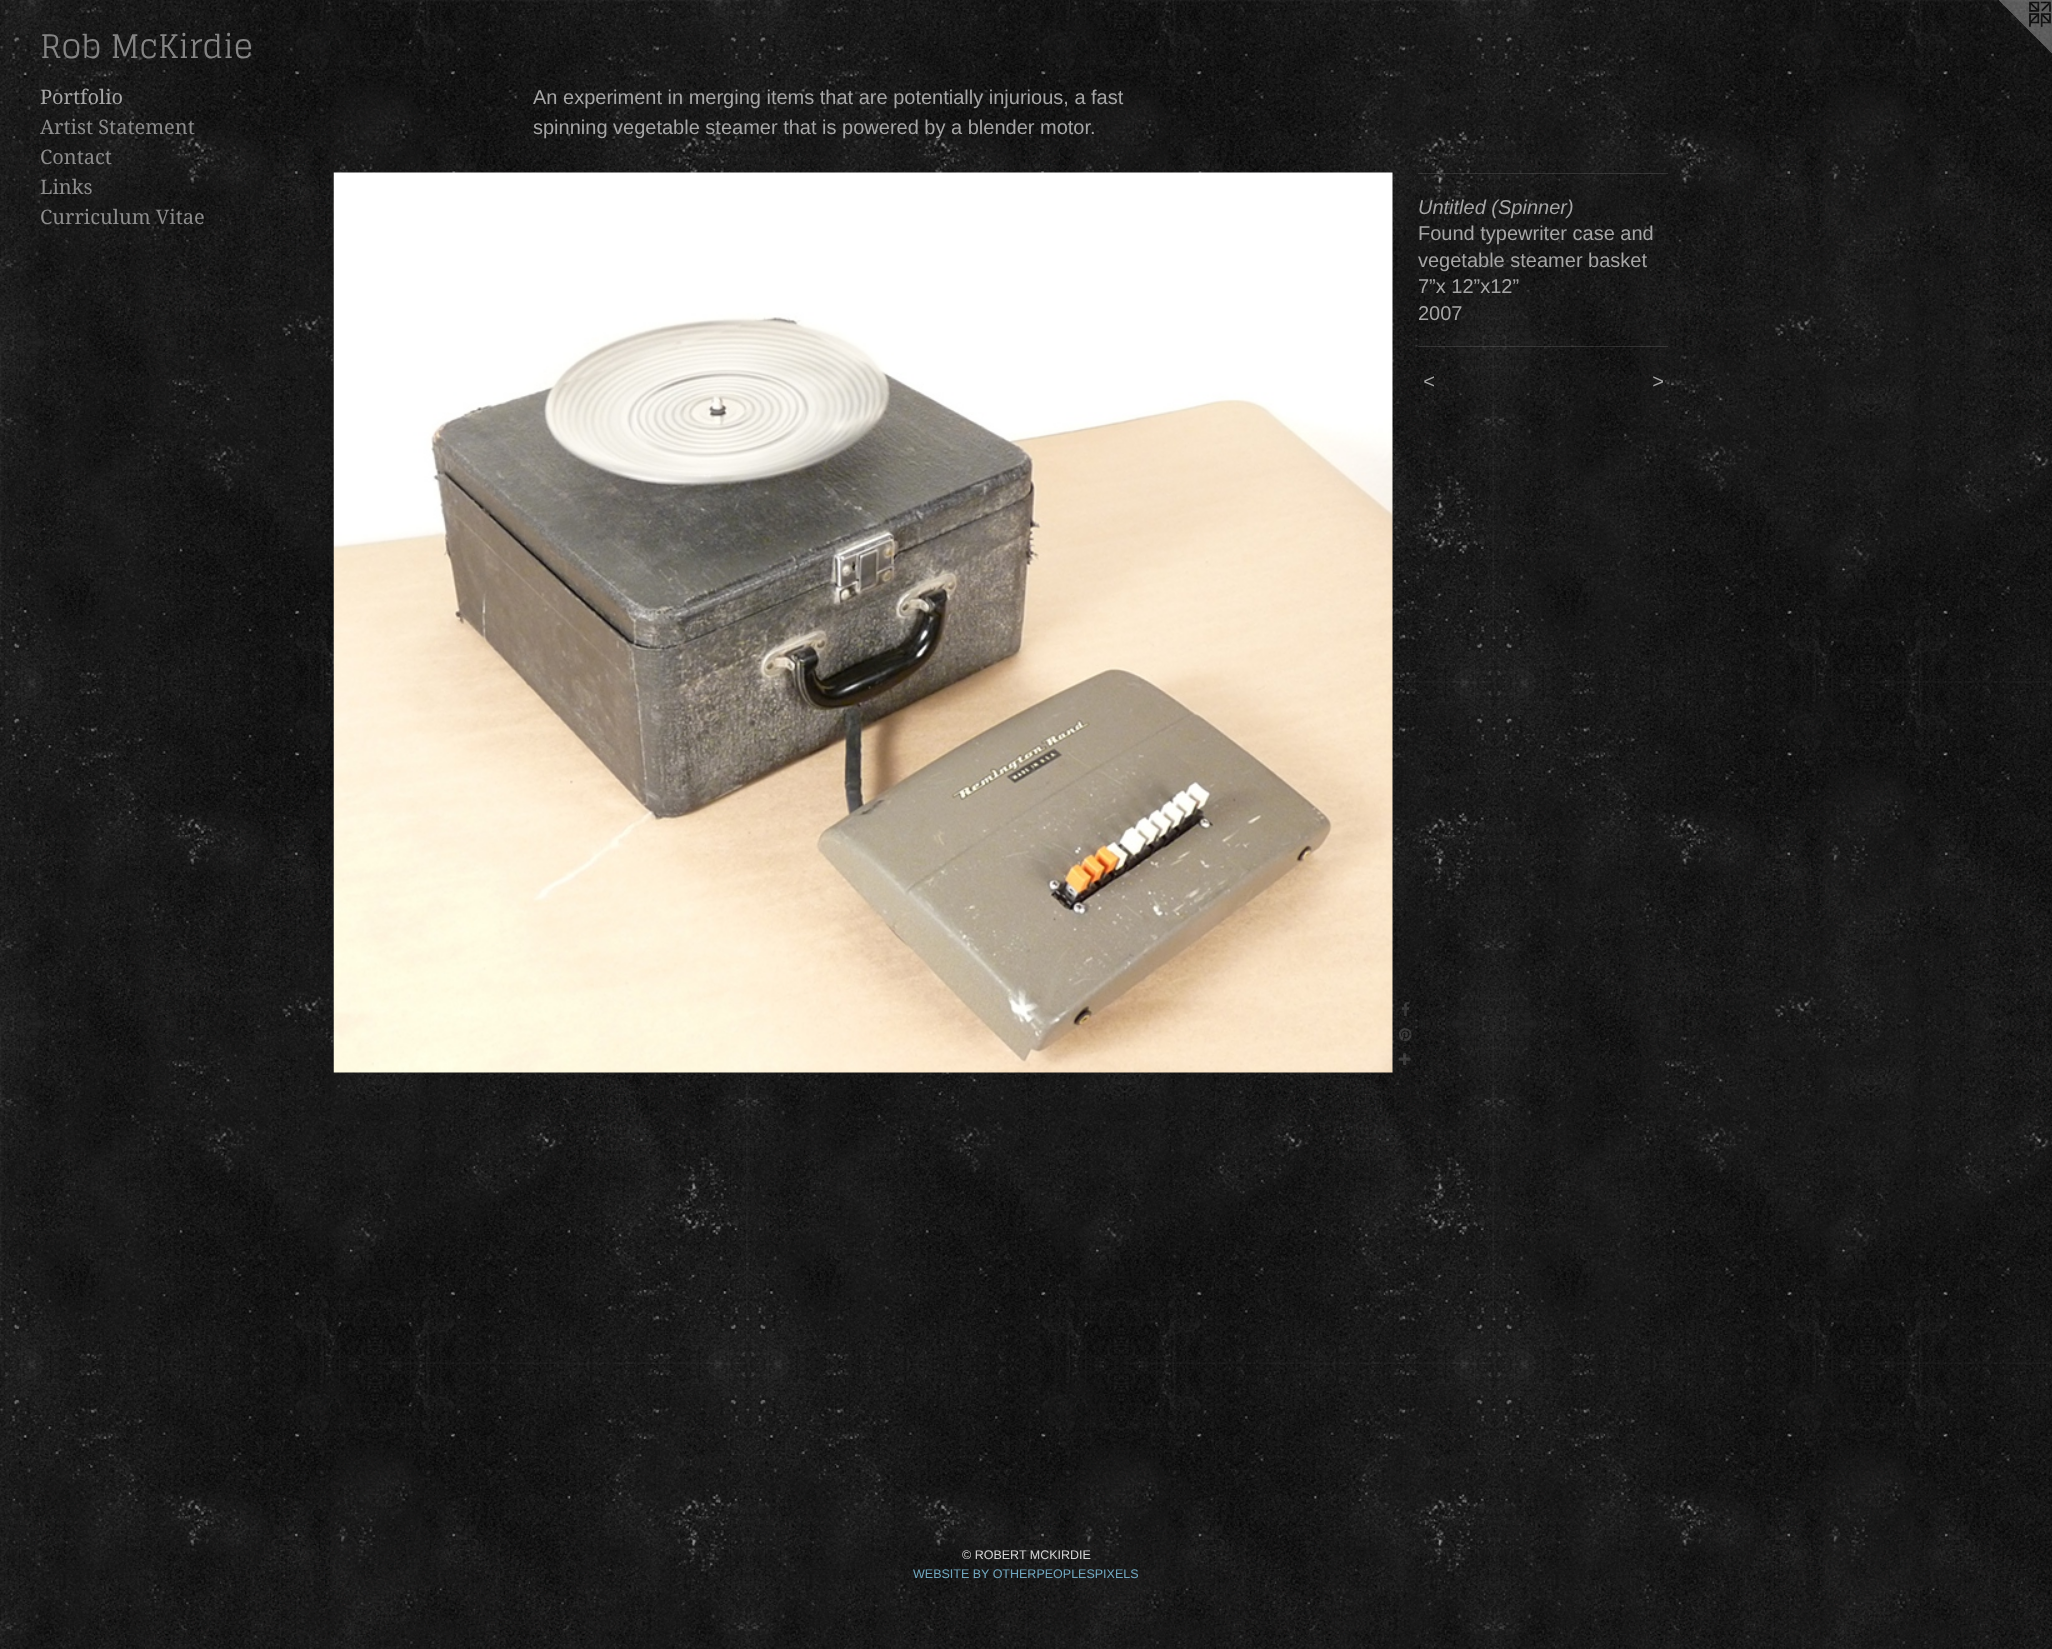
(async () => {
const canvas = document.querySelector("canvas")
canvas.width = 2052
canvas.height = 1649
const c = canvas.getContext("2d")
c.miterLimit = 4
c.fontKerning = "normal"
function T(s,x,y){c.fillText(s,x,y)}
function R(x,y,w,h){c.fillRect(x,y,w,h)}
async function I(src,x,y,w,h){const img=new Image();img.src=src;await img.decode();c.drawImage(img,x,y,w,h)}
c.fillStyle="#fff"
R(0,0,2052,1649)
await I("1.png",0,0,2052,1649)
c.font="32.5px Glegoo"
c.fillStyle="#858585"
T("Rob McKirdie",40,58)
await I("2.png",1999,0,53,54)
c.font="20px Droid Serif"
c.fillStyle="#a6a6a6"
T("Portfolio",40,104)
c.fillStyle="#8c8c8c"
T("Artist Statement",40,134)
T("Contact",40,164)
T("Links",40,194)
T("Curriculum Vitae",40,224)
c.font="20px Liberation Sans"
c.fillStyle="#a6a6a6"
T("An experiment in merging items that are potentially injurious, a fast",533,104)
T("spinning vegetable steamer that is powered by a blender motor.",533,134)
await I("3.png",333,172,1060,901)
await I("4.png",1402,1002,8,14)
await I("5.png",1398,1028,14,13)
await I("6.png",1398,1053,13,12)
c.fillStyle="#a8a8a833"
R(1418,173,250,1)
c.font="italic 20px Liberation Sans"
c.fillStyle="#a6a6a6"
T("Untitled (Spinner)",1418,214)
c.font="20px Liberation Sans"
T("Found typewriter case and",1418,240)
T("vegetable steamer basket",1418,267)
T("7”x 12”x12”",1418,293)
T("2007",1418,320)
c.fillStyle="#a8a8a833"
R(1418,346,250,1)
c.letterSpacing="1px"
c.font="italic 20px Liberation Sans"
c.fillStyle="#a6a6a6"
T("<",1423,388)
T(">",1652,388)
c.letterSpacing="0px"
c.font="12.5px Liberation Sans"
c.fillStyle="#d6d6d6"
T("© ROBERT MCKIRDIE",962,1559)
c.fillStyle="#70a8c0"
T("WEBSITE BY OTHERPEOPLESPIXELS",913,1578)
})()
